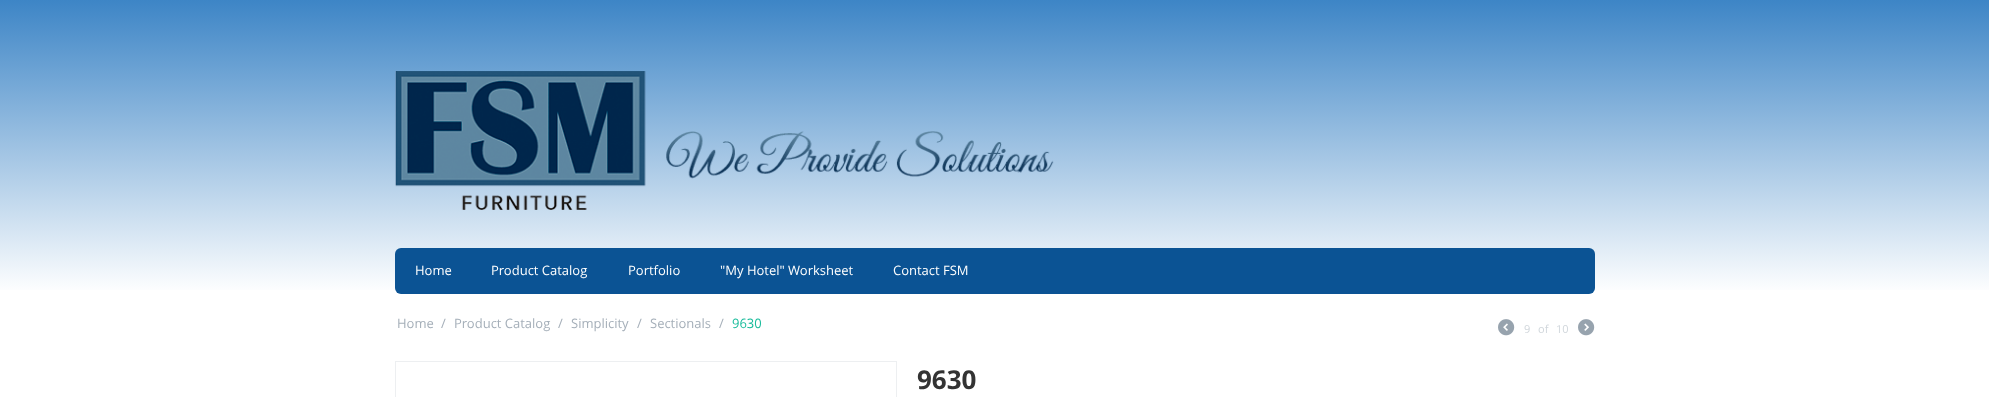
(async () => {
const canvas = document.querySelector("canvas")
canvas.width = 1989
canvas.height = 397
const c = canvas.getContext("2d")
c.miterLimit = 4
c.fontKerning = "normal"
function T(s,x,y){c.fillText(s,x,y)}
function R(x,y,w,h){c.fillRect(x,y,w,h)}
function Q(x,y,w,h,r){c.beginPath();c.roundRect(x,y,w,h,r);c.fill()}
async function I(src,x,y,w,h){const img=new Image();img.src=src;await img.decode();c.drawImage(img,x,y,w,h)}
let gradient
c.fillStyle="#fff"
R(0,0,1989,397)
gradient = c.createLinearGradient(995,0,995,294)
gradient.addColorStop(0,"#3d85c6")
gradient.addColorStop(1,"#fff")
c.fillStyle = gradient
R(0,0,1989,290)
await I("1.png",395,71,659,139)
c.fillStyle="#0b5394"
Q(395,248,1200,46,6)
c.font="13px Open Sans"
c.fillStyle="#fff"
T("Home",415,275)
T("Product Catalog",491,275)
T("Portfolio",628,275)
T("\"My Hotel\" Worksheet",720,275)
T("Contact FSM",893,275)
c.fillStyle="#a5afb9"
T("Home",397,328)
T("/",441,328)
T("Product Catalog",454,328)
T("/",558,328)
T("Simplicity",571,328)
T("/",637,328)
T("Sectionals",650,328)
T("/",719,328)
c.fillStyle="#1abc9c"
T("9630",732,328)
await I("2.png",1498,319,17,17)
c.font="11px Open Sans"
c.fillStyle="#d0d6db"
T("9",1524,333)
T("of",1538,333)
T("10",1556,333)
await I("3.png",1578,319,17,17)
c.strokeStyle="#edeff1"
c.strokeRect(395.5,361.5,501,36)
c.font="bold 26px Open Sans"
c.fillStyle="#333"
T("9630",917,389)
})()
